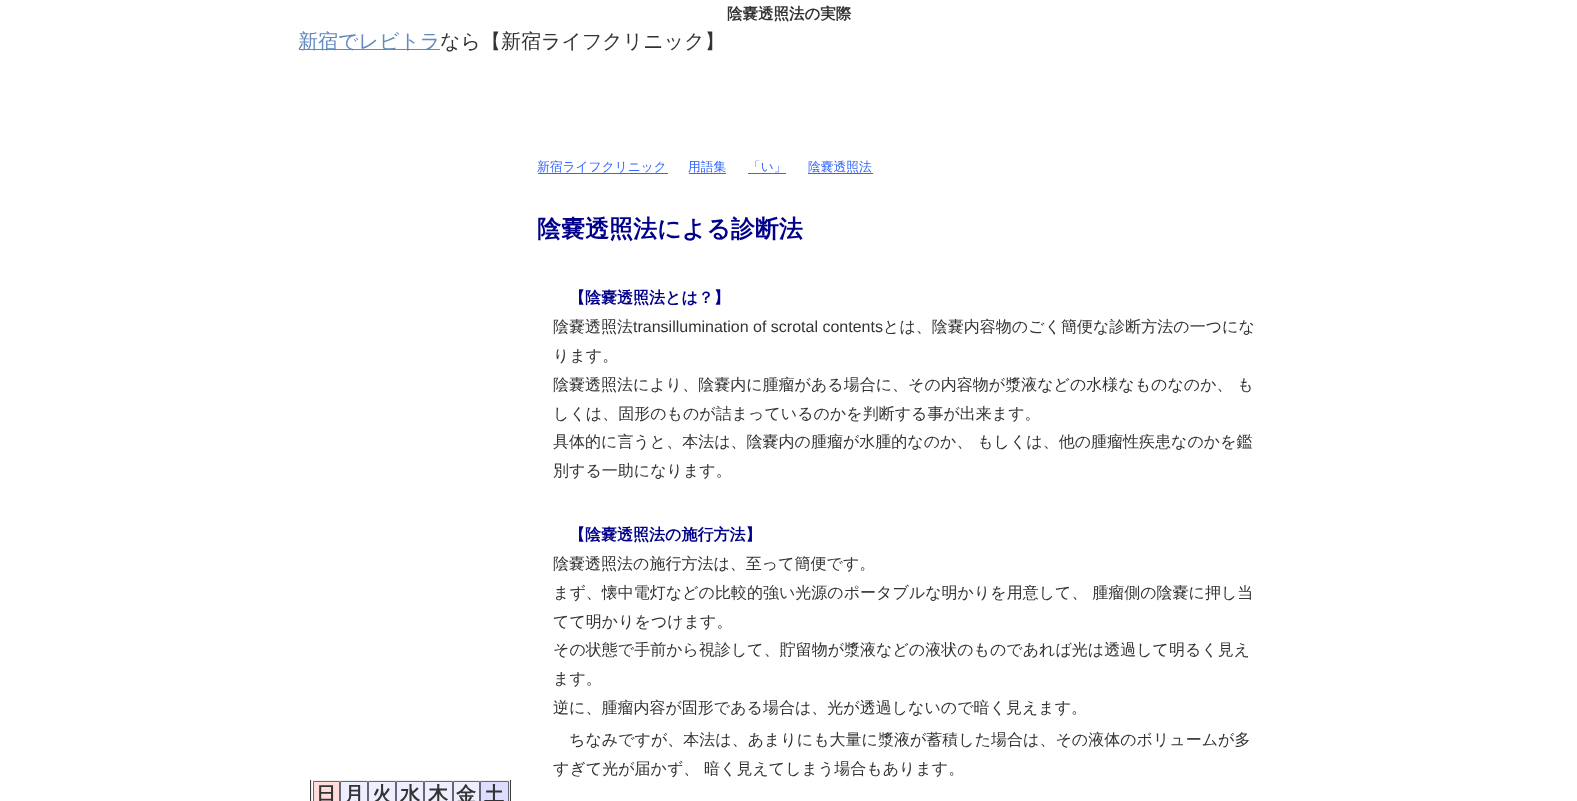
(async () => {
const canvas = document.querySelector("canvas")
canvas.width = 1577
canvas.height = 801
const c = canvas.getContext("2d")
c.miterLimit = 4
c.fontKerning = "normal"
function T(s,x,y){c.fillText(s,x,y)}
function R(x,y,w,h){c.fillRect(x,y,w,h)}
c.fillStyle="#fff"
R(0,0,1577,801)
c.font="bold 15.5px WenQuanYi Zen Hei"
c.fillStyle="#333"
T("陰嚢透照法の実際",727,19)
c.fillStyle="#628abe"
R(299,49,141,1)
c.font="500 20px WenQuanYi Zen Hei"
T("新宿でレビトラ",298,48)
c.fillStyle="#333"
T("なら【新宿ライフクリニック】",440,48)
c.font="500 12.75px WenQuanYi Zen Hei"
c.fillStyle="#36f"
T("新宿ライフクリニック",537,171)
R(538,173,130,1)
T("用語集",688,171)
R(689,173,37,1)
T("「い」",748,171)
R(748,173,38,1)
R(808,173,65,1)
T("陰嚢透照法",808,171)
c.font="bold 24px WenQuanYi Zen Hei"
c.fillStyle="#00008b"
T("陰嚢透照法による診断法",537,237)
c.font="bold 16px WenQuanYi Zen Hei"
T("【陰嚢透照法とは？】",569,303)
c.font="500 16px WenQuanYi Zen Hei"
c.fillStyle="#333"
T("陰嚢透照法",553,332)
c.font="16px Liberation Sans"
T("transillumination of scrotal contents",633,332)
c.font="500 16px WenQuanYi Zen Hei"
T("とは、陰嚢内容物のごく簡便な診断方法の一つにな",883,332)
T("ります。",553,361)
T("陰嚢透照法により、陰嚢内に腫瘤がある場合に、その内容物が漿液などの水様なものなのか、 も",553,390)
T("しくは、固形のものが詰まっているのかを判断する事が出来ます。",553,419)
T("具体的に言うと、本法は、陰嚢内の腫瘤が水腫的なのか、 もしくは、他の腫瘤性疾患なのかを鑑",553,447)
T("別する一助になります。",553,476)
c.font="bold 16px WenQuanYi Zen Hei"
c.fillStyle="#00008b"
T("【陰嚢透照法の施行方法】",569,540)
c.font="500 16px WenQuanYi Zen Hei"
c.fillStyle="#333"
T("陰嚢透照法の施行方法は、至って簡便です。",553,569)
T("まず、懐中電灯などの比較的強い光源のポータブルな明かりを用意して、 腫瘤側の陰嚢に押し当",553,598)
T("てて明かりをつけます。",553,627)
T("その状態で手前から視診して、貯留物が漿液などの液状のものであれば光は透過して明るく見え",553,655)
T("ます。",553,684)
T("逆に、腫瘤内容が固形である場合は、光が透過しないので暗く見えます。",553,713)
T("ちなみですが、本法は、あまりにも大量に漿液が蓄積した場合は、その液体のボリュームが多",569,745)
T("すぎて光が届かず、 暗く見えてしまう場合もあります。",553,774)
c.fillStyle="#3a3a3a"
R(510,780,1,21)
R(310,780,1,21)
c.strokeStyle="#eee"
c.strokeRect(311.5,780.5,198,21)
c.fillStyle="#fdd"
c.beginPath()
c.rect(313.5,781.5,26,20)
c.fill()
c.strokeStyle="#667"
c.stroke()
c.font="bold 20px WenQuanYi Zen Hei"
c.fillStyle="#333"
T("日",316,801)
c.fillStyle="#eef"
c.beginPath()
c.rect(340.5,781.5,27,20)
c.fill()
c.stroke()
c.fillStyle="#333"
T("月",344,801)
c.fillStyle="#eef"
c.beginPath()
c.rect(368.5,781.5,27,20)
c.fill()
c.stroke()
c.fillStyle="#333"
T("火",372,801)
c.fillStyle="#eef"
c.beginPath()
c.rect(396.5,781.5,27,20)
c.fill()
c.stroke()
c.fillStyle="#333"
T("水",400,801)
c.fillStyle="#eef"
c.beginPath()
c.rect(424.5,781.5,28,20)
c.fill()
c.stroke()
c.fillStyle="#333"
T("木",428,801)
c.fillStyle="#eef"
c.beginPath()
c.rect(453.5,781.5,26,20)
c.fill()
c.stroke()
c.fillStyle="#333"
T("金",456,801)
c.fillStyle="#ddf"
c.beginPath()
c.rect(480.5,781.5,28,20)
c.fill()
c.stroke()
c.fillStyle="#333"
T("土",484,801)
})()
